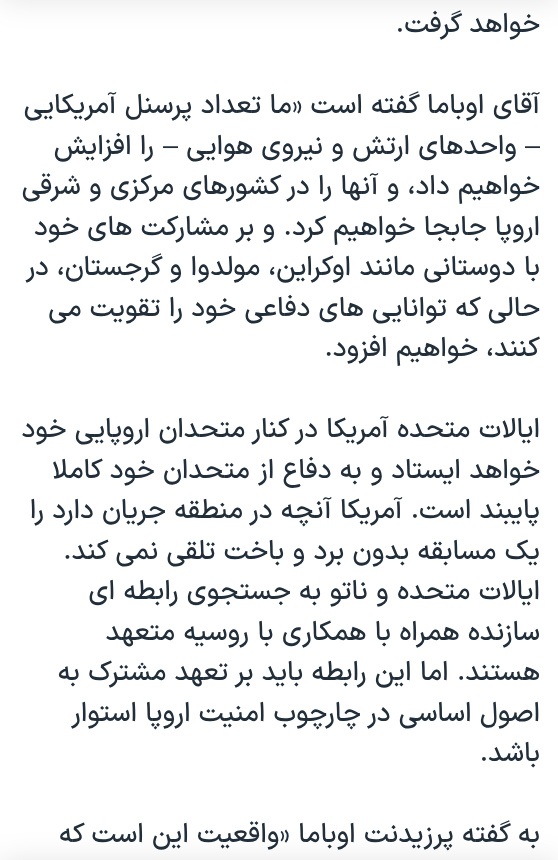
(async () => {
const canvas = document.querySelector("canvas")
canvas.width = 558
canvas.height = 860
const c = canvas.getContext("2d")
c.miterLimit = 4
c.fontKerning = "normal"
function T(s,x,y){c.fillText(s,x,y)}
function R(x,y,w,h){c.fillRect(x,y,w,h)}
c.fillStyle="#fff"
R(0,0,558,860)
c.fillStyle="#0000001a"
c.filter="blur(15px)"
c.beginPath()
c.rect(0,-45,558,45)
c.fill()
c.filter="none"
c.filter="blur(15px)"
c.beginPath()
c.rect(0,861,558,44)
c.fill()
c.filter="none"
c.direction="rtl"
c.font="500 27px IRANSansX"
c.fillStyle="#222f3a"
T("خواهد گرفت.",540,32)
T("آقای اوباما گفته است «ما تعداد پرسنل آمریکایی",540,113)
c.font="27px Liberation Sans"
T("–",540,154)
c.font="500 27px IRANSansX"
T("واحدهای ارتش و نیروی هوایی",517,154)
c.font="27px Liberation Sans"
T("–",178,154)
c.font="500 27px IRANSansX"
T("را افزایش",154,154)
T("خواهیم داد، و آنها را در کشورهای مرکزی و شرقی",540,194)
T("اروپا جابجا خواهیم کرد. و بر مشارکت های خود",540,235)
T("با دوستانی مانند اوکراین، مولدوا و گرجستان، در",540,275)
T("حالی که توانایی های دفاعی خود را تقویت می",540,316)
T("کنند، خواهیم افزود.",540,356)
T("ایالات متحده آمریکا در کنار متحدان اروپایی خود",540,437)
T("خواهد ایستاد و به دفاع از متحدان خود کاملا",540,478)
T("پایبند است. آمریکا آنچه در منطقه جریان دارد را",540,518)
T("یک مسابقه بدون برد و باخت تلقی نمی کند.",540,559)
T("ایالات متحده و ناتو به جستجوی رابطه ای",540,599)
T("سازنده همراه با همکاری با روسیه متعهد",540,640)
T("هستند. اما این رابطه باید بر تعهد مشترک به",540,680)
T("اصول اساسی در چارچوب امنیت اروپا استوار",540,721)
T("باشد.",540,761)
T("به گفته پرزیدنت اوباما «واقعیت این است که",540,842)
})()
